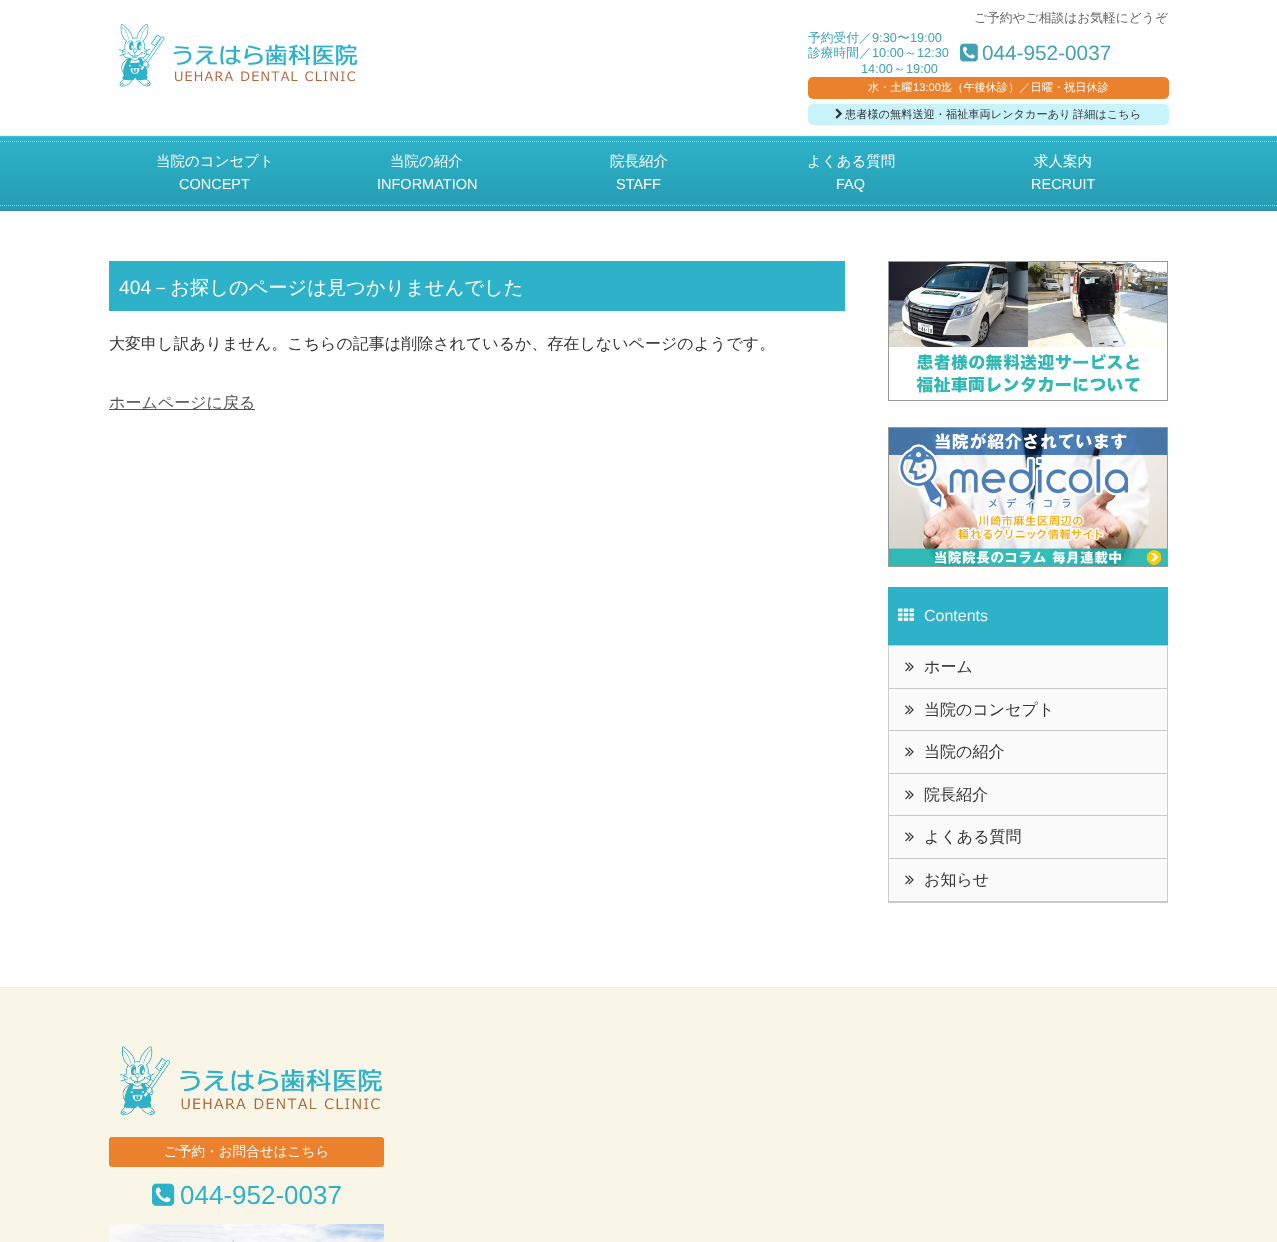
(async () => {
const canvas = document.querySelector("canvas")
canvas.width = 1277
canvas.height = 1242
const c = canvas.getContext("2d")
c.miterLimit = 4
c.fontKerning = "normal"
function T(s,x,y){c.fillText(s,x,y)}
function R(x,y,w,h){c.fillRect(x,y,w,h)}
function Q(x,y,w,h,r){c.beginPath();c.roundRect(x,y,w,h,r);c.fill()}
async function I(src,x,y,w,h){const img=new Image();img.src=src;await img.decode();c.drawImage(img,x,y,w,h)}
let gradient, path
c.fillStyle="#fff"
R(0,0,1277,1242)
c.fillStyle="#eee"
R(0,135,1277,1)
await I("1.png",119,24,238,63)
c.font="500 12.75px WenQuanYi Zen Hei"
c.fillStyle="#666"
T("ご予約やご相談はお気軽にどうぞ",974,22)
c.fillStyle="#43a0b5"
T("予約受付／",808,42)
c.font="12.75px Liberation Sans"
T("9:30",872,42)
c.font="500 12.75px WenQuanYi Zen Hei"
T("〜",897,42)
c.font="12.75px Liberation Sans"
T("19:00",910,42)
c.font="500 12.75px WenQuanYi Zen Hei"
T("診療時間／",808,57)
c.font="12.75px Liberation Sans"
T("10:00",872,57)
c.font="500 12.75px WenQuanYi Zen Hei"
T("～",904,57)
c.font="12.75px Liberation Sans"
T("12:30",917,57)
T("14:00",861,73)
c.font="500 12.75px WenQuanYi Zen Hei"
T("～",893,73)
c.font="12.75px Liberation Sans"
T("19:00",906,73)
await I("2.png",960,43,18,19)
c.font="20.75px Liberation Sans"
T("044-952-0037",982,60)
c.fillStyle="#eb812d"
Q(808,77,361,22,5)
c.font="500 11.2px WenQuanYi Zen Hei"
c.fillStyle="#fff"
T("水・土曜",868,91)
c.font="11.2px Liberation Sans"
T("13:00",913,91)
c.font="500 11.2px WenQuanYi Zen Hei"
T("迄（午後休診）／日曜・祝日休診",941,91)
c.fillStyle="#c9f3fa"
Q(808,104,361,21,5)
await I("3.png",835,108,7,11)
c.wordSpacing="-1px"
c.fillStyle="#343434"
T("患者様の無料送迎・福祉車両レンタカーあり 詳細はこちら",845,118)
gradient = c.createLinearGradient(639,210,639,137)
gradient.addColorStop(0,"#259db2")
gradient.addColorStop(1,"#2eb2c9")
c.fillStyle = gradient
R(0,137,1277,73)
c.fillStyle="#41c0d7"
R(0,136,1277,1)
c.fillStyle="#398b9d"
R(0,210,1277,1)
path = new Path2D("M0 141.5h1277")
c.strokeStyle="#8cd7e4"
c.setLineDash([1,1])
c.stroke(path)
path = new Path2D("M0 205.5h1277")
c.stroke(path)
path = new Path2D("M109 204.5h212")
c.strokeStyle="#999"
c.stroke(path)
c.wordSpacing="0px"
c.font="500 14.5px WenQuanYi Zen Hei"
c.fillStyle="#fff"
T("当院のコンセプト",156,166)
c.font="14.5px Liberation Sans"
T("CONCEPT",179,189)
path = new Path2D("M321 204.5h212")
c.stroke(path)
c.font="500 14.5px WenQuanYi Zen Hei"
T("当院の紹介",390,166)
c.font="14.5px Liberation Sans"
T("INFORMATION",377,189)
path = new Path2D("M533 204.5h212")
c.stroke(path)
c.font="500 14.5px WenQuanYi Zen Hei"
T("院長紹介",610,166)
c.font="14.5px Liberation Sans"
T("STAFF",616,189)
path = new Path2D("M745 204.5h212")
c.stroke(path)
c.font="500 14.5px WenQuanYi Zen Hei"
T("よくある質問",807,166)
c.font="14.5px Liberation Sans"
T("FAQ",836,189)
path = new Path2D("M957 204.5h212")
c.stroke(path)
c.font="500 14.5px WenQuanYi Zen Hei"
T("求人案内",1034,166)
c.font="14.5px Liberation Sans"
T("RECRUIT",1031,189)
c.fillStyle="#2eb2c9"
R(109,261,736,50)
c.font="19.25px Liberation Sans"
c.fillStyle="#fff"
T("404",119,294)
c.font="500 19.25px WenQuanYi Zen Hei"
T("－お探しのページは見つかりませんでした",151,294)
c.font="500 16px WenQuanYi Zen Hei"
c.fillStyle="#343434"
T("大変申し訳ありません。こちらの記事は削除されているか、存在しないページのようです。",109,349)
c.fillStyle="#555"
R(109,409,146,1)
T("ホームページに戻る",109,408)
await I("4.png",888,261,280,140)
await I("5.png",888,427,280,140)
c.fillStyle="#2eb2c9"
R(888,587,280,58)
await I("6.png",898,608,16,13)
c.font="16px Liberation Sans"
c.fillStyle="#f2f2f2"
T("Contents",924,621)
c.fillStyle="#fafafa"
R(889,646,278,255)
c.strokeStyle="#ccc"
c.setLineDash([])
c.strokeRect(888.5,645.5,279,257)
c.fillStyle="#c8c8c8"
R(889,688,278,1)
await I("7.png",905,662,9,10)
c.font="500 16px WenQuanYi Zen Hei"
c.fillStyle="#343434"
T("ホーム",924,672)
c.fillStyle="#c8c8c8"
R(889,730,278,1)
await I("7.png",905,705,9,10)
c.fillStyle="#343434"
T("当院のコンセプト",924,715)
c.fillStyle="#c8c8c8"
R(889,773,278,1)
await I("7.png",905,747,9,10)
c.fillStyle="#343434"
T("当院の紹介",924,757)
c.fillStyle="#c8c8c8"
R(889,815,278,1)
await I("7.png",905,790,9,10)
c.fillStyle="#343434"
T("院長紹介",924,800)
c.fillStyle="#c8c8c8"
R(889,858,278,1)
await I("7.png",905,832,9,10)
c.fillStyle="#343434"
T("よくある質問",924,842)
c.fillStyle="#c8c8c8"
R(889,901,278,1)
await I("7.png",905,875,9,10)
c.fillStyle="#343434"
T("お知らせ",924,885)
c.fillStyle="#f9f6e8"
R(0,988,1277,254)
c.fillStyle="#f3efdc"
R(0,987,1277,1)
await I("8.png",120,1046,262,69)
c.fillStyle="#eb812d"
Q(109,1137,275,30,3)
c.font="500 13.6px WenQuanYi Zen Hei"
c.fillStyle="#fff"
T("ご予約・お問合せはこちら",164,1156)
await I("9.png",152,1183,23,23)
c.font="26px Liberation Sans"
c.fillStyle="#2eb2c9"
T("044-952-0037",180,1204)
await I("10.png",109,1224,275,18)
})()
